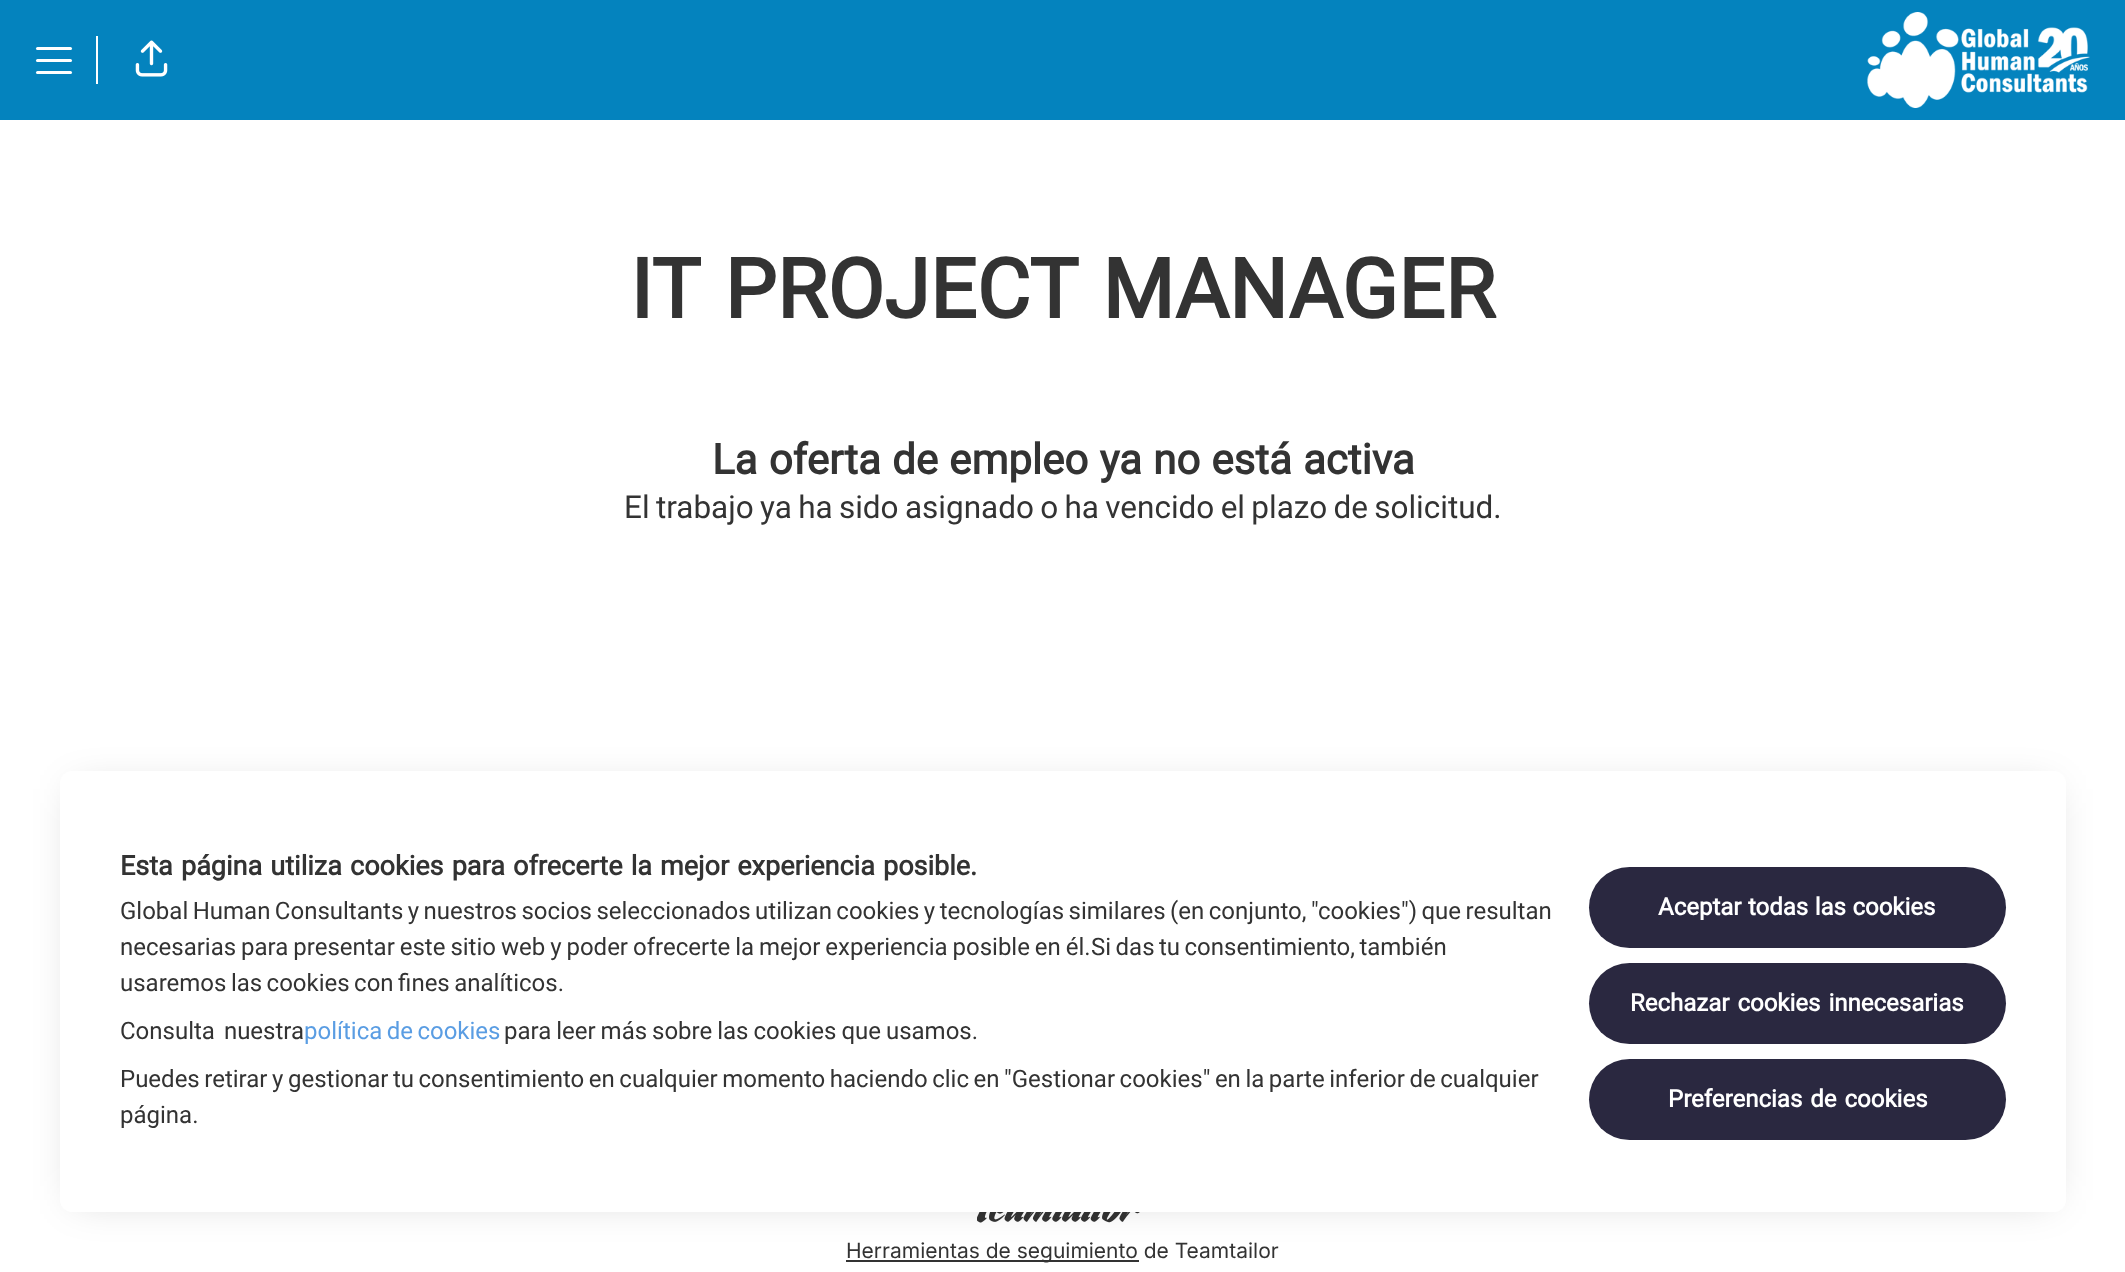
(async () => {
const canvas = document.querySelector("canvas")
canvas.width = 2125
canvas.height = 1272
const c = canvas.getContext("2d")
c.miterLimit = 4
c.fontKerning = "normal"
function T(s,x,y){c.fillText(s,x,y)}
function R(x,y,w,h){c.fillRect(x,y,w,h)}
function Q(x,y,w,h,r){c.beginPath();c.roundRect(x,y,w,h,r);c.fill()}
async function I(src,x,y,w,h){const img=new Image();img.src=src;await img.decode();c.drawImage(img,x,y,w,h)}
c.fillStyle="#fff"
R(0,0,2125,1272)
c.fillStyle="#0483be"
R(0,0,2125,120)
c.fillStyle="#fff"
Q(36,47,36,3,1.5)
Q(36,59,36,3,1.5)
Q(36,71,36,3,1.5)
R(96,36,2,48)
await I("1.png",135,40,33,37)
await I("2.png",1867,12,223,96)
c.wordSpacing="5px"
c.font="bold 82.5px Roboto"
c.fillStyle="#333"
T("IT PROJECT MANAGER",630,318)
c.wordSpacing="0.75px"
c.font="bold 42px Roboto"
T("La oferta de empleo ya no está activa",712,474)
c.wordSpacing="-1.5px"
c.font="31.5px Roboto"
T("El trabajo ya ha sido asignado o ha vencido el plazo de solicitud.",624,518)
await I("3.png",977,1212,163,11)
R(846,1260,293,2)
c.fillStyle="#0000002e"
c.filter="blur(20px)"
c.beginPath()
c.rect(75,789,1976,411)
c.fill()
c.filter="none"
c.fillStyle="#fff"
Q(60,771,2006,441,12)
c.wordSpacing="1.5px"
c.font="bold 27px Roboto"
c.fillStyle="#333"
T("Esta página utiliza cookies para ofrecerte la mejor experiencia posible.",120,875)
c.wordSpacing="-1.5px"
c.font="24px Roboto"
T("Global Human Consultants y nuestros socios seleccionados utilizan cookies y tecnologías similares (en conjunto, \"cookies\") que resultan",120,919)
c.wordSpacing="-1px"
T("necesarias para presentar este sitio web y poder ofrecerte la mejor experiencia posible en él.",120,955)
c.wordSpacing="-1.5px"
T("Si das tu consentimiento, también",1091,955)
T("usaremos las cookies con fines analíticos.",120,991)
c.wordSpacing="3px"
T("Consulta nuestra",120,1039)
c.wordSpacing="-1.5px"
c.fillStyle="#5a9de3"
T("política de cookies",304,1039)
c.wordSpacing="-1px"
c.fillStyle="#333"
T("para leer más sobre las cookies que usamos.",504,1039)
c.wordSpacing="-1.4px"
T("Puedes retirar y gestionar tu consentimiento en cualquier momento haciendo clic en \"Gestionar cookies\" en la parte inferior de cualquier",120,1087)
c.wordSpacing="0px"
T("página.",120,1123)
c.fillStyle="#2a2840"
Q(1589,867,417,81,40.5)
c.wordSpacing="0.5px"
c.font="bold 24px Roboto"
c.fillStyle="#fff"
T("Aceptar todas las cookies",1658,915)
c.fillStyle="#2a2840"
Q(1589,963,417,81,40.5)
c.wordSpacing="2px"
c.fillStyle="#fff"
T("Rechazar cookies innecesarias",1630,1011)
c.fillStyle="#2a2840"
Q(1589,1059,417,81,40.5)
c.fillStyle="#fff"
T("Preferencias de cookies",1668,1107)
c.wordSpacing="0px"
c.font="21px Inter"
c.fillStyle="#333"
T("Herramientas de seguimiento de Teamtailor",846,1258)
})()
